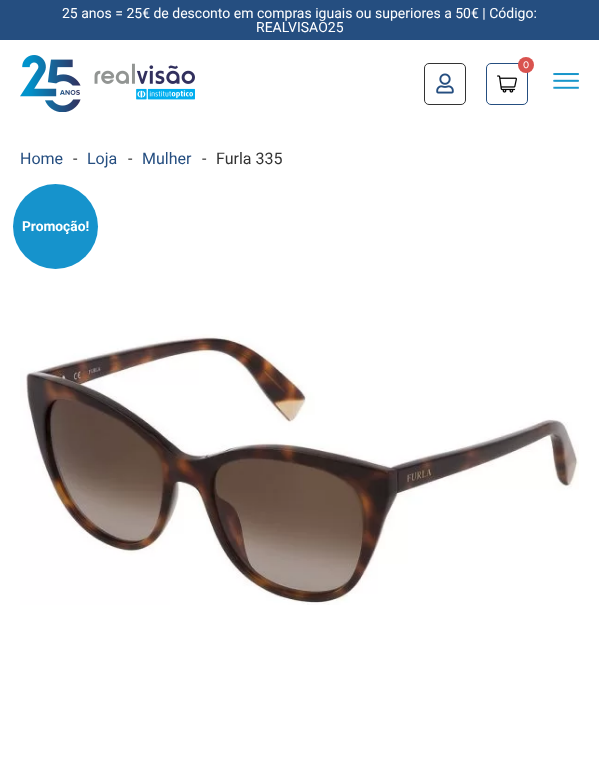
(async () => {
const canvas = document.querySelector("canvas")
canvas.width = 599
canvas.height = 778
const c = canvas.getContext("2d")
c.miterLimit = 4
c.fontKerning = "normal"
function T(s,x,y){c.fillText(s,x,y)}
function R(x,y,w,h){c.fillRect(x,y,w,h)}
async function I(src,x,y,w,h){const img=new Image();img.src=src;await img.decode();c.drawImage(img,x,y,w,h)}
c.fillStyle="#fff"
R(0,0,599,778)
c.fillStyle="#254e80"
R(0,0,599,40)
c.font="14px Roboto"
c.fillStyle="#fff"
T("25 anos = 25€ de desconto em compras iguais ou superiores a 50€ | Código:",62,18)
T("REALVISAO25",256,32)
await I("1.png",20,55,175,57)
c.beginPath()
c.roundRect(424.5,63.5,41,41,4.5)
c.strokeStyle="#333"
c.stroke()
await I("2.png",436,73,18,21)
c.beginPath()
c.roundRect(486.5,63.5,41,41,4.5)
c.strokeStyle="#254e80"
c.stroke()
c.fillStyle="#d9534f"
c.beginPath()
c.arc(526,65,8,0,7)
c.fill()
c.font="10px Proxima Nova"
c.fillStyle="#fff"
T("0",523,68)
await I("3.png",497,75,20,18)
await I("4.png",553,73,26,16)
c.font="16px Roboto"
c.fillStyle="#254e80"
T("Home",20,164)
c.fillStyle="#333"
T("-",73,164)
c.fillStyle="#254e80"
T("Loja",87,164)
c.fillStyle="#333"
T("-",128,164)
c.fillStyle="#254e80"
T("Mulher",142,164)
c.fillStyle="#333"
T("-",202,164)
T("Furla 335",216,164)
c.fillStyle="#1693cc"
c.beginPath()
c.arc(55.5,226.5,42.5,0,7)
c.fill()
c.font="bold 13.75px Roboto"
c.fillStyle="#fff"
T("Promoção!",22,231)
await I("5.png",20,334,559,271)
})()
